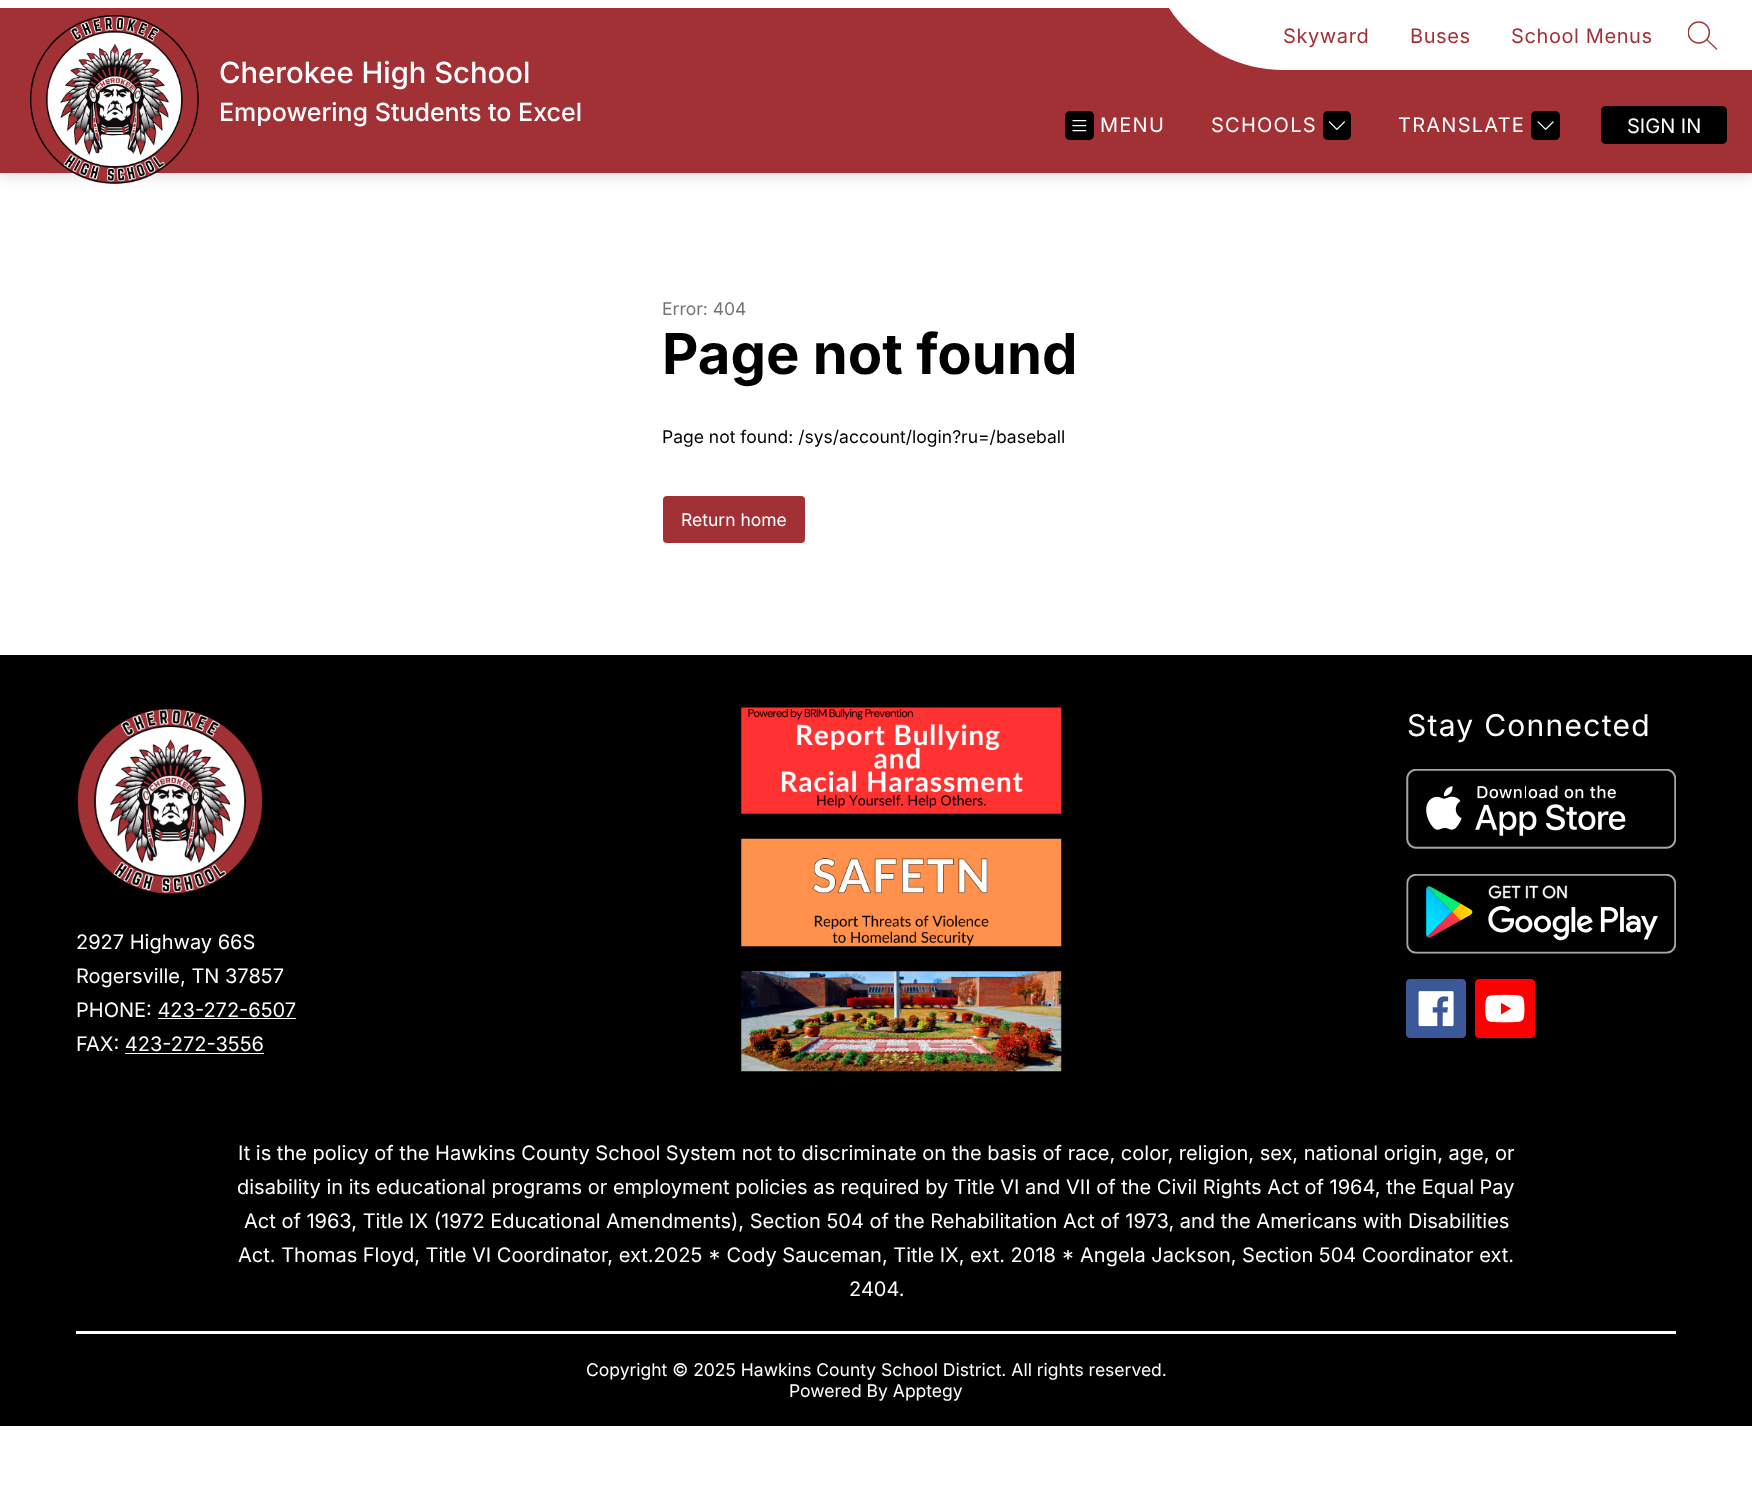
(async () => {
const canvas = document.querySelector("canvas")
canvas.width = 1752
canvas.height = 1499
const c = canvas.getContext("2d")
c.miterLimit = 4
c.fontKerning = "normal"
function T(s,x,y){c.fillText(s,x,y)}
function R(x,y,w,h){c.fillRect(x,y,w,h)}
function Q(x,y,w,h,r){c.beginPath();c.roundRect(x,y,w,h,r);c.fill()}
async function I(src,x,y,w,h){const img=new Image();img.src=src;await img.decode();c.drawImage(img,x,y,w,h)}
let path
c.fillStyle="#fff"
R(0,0,1752,1499)
c.fillStyle="#0000001a"
c.filter="blur(6px)"
c.beginPath()
c.rect(0,5,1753,173)
c.fill()
c.filter="none"
c.fillStyle="#a23136"
R(0,8,1752,165)
c.fillStyle="#fff"
R(0,0,1169,8)
await I("1.png",30,15,169,169)
c.font="500 29.25px Inter"
T("Cherokee High School",219,83)
c.font="500 25px Inter"
T("Empowering Students to Excel",219,121)
R(1286,0,466,70)
path = new Path2D("M1283 70h3v-70h-120c-1 0-1 1-1 2l8 12c26 35 67 56 110 56z")
c.fill(path)
c.letterSpacing="0.6px"
c.font="20px Inter"
c.fillStyle="#a23136"
T("Skyward",1283,43)
T("Buses",1410,43)
T("School Menus",1511,43)
await I("2.png",1688,21,30,29)
await I("3.png",1065,111,29,29)
c.letterSpacing="1.25px"
c.fillStyle="#fff"
T("MENU",1100,132)
T("SCHOOLS",1211,132)
await I("4.png",1323,111,28,29)
T("TRANSLATE",1398,132)
await I("5.png",1531,111,29,29)
c.fillStyle="#000"
c.beginPath()
c.roundRect(1600.5,105.5,127,39,5.5)
c.fill()
c.strokeStyle="#a23136"
c.stroke()
c.letterSpacing="0px"
c.fillStyle="#fff"
T("SIGN IN",1627,133)
c.font="17.5px Inter"
c.fillStyle="#747474"
T("Error: 404",662,315)
c.font="bold 56.25px Inter"
c.fillStyle="#000"
T("Page not found",662,374)
c.font="17.5px Inter"
T("Page not found: /sys/account/login?ru=/baseball",662,443)
c.fillStyle="#a23136"
Q(663,496,142,47,4)
c.fillStyle="#fff"
T("Return home",681,526)
c.fillStyle="#000"
R(0,655,1752,771)
await I("6.png",741,707,321,107)
await I("7.png",741,838,321,109)
await I("8.png",741,971,321,101)
c.letterSpacing="1.25px"
c.font="30px Inter"
c.fillStyle="#fff"
T("Stay Connected",1407,736)
await I("9.png",1406,769,270,80)
await I("10.png",1406,874,270,80)
await I("11.png",1406,979,60,59)
await I("12.png",1475,979,60,59)
await I("13.png",76,708,188,187)
c.letterSpacing="0px"
c.font="20px Inter"
T("2927 Highway 66S",76,949)
T("Rogersville, TN 37857",76,983)
T("PHONE: 423-272-6507",76,1017)
R(158,1018,138,1)
T("FAX: 423-272-3556",76,1051)
R(125,1053,139,1)
T("It is the policy of the Hawkins County School System not to discriminate on the basis of race, color, religion, sex, national origin, age, or",238,1160)
T("disability in its educational programs or employment policies as required by Title VI and VII of the Civil Rights Act of 1964, the Equal Pay",237,1194)
T("Act of 1963, Title IX (1972 Educational Amendments), Section 504 of the Rehabilitation Act of 1973, and the Americans with Disabilities",244,1228)
T("Act. Thomas Floyd, Title VI Coordinator, ext.2025 * Cody Sauceman, Title IX, ext. 2018 * Angela Jackson, Section 504 Coordinator ext.",238,1262)
T("2404.",849,1296)
R(76,1331,1600,3)
c.font="17.5px Inter"
T("Copyright © 2025 Hawkins County School District. All rights reserved.",586,1376)
T("Powered By Apptegy",789,1397)
})()
